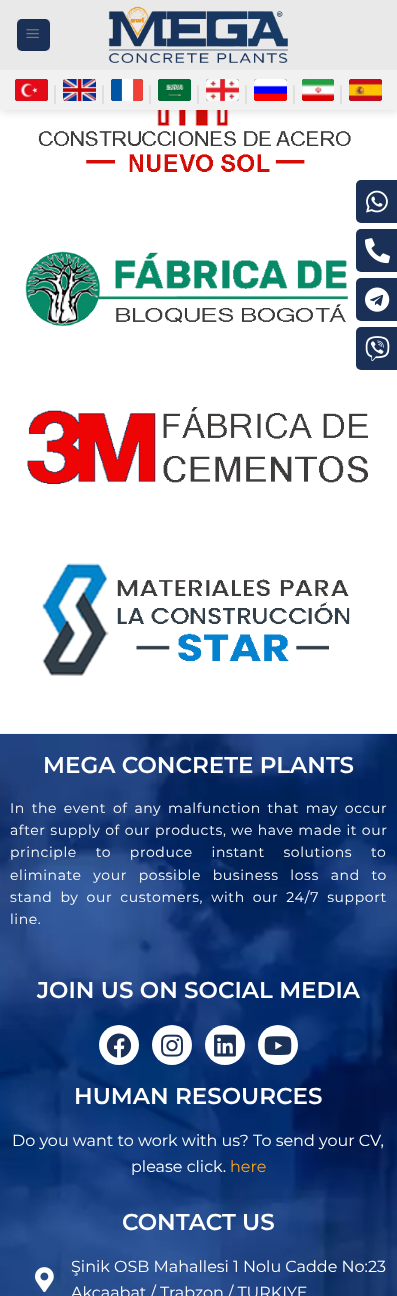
(async () => {
const canvas = document.querySelector("canvas")
canvas.width = 397
canvas.height = 1296
const c = canvas.getContext("2d")
c.miterLimit = 4
c.fontKerning = "normal"
function T(s,x,y){c.fillText(s,x,y)}
function R(x,y,w,h){c.fillRect(x,y,w,h)}
function Q(x,y,w,h,r){c.beginPath();c.roundRect(x,y,w,h,r);c.fill()}
async function I(src,x,y,w,h){const img=new Image();img.src=src;await img.decode();c.drawImage(img,x,y,w,h)}
c.fillStyle="#fff"
R(0,0,397,1296)
await I("11.png",38,110,313,62)
c.fillStyle="#00000026"
c.filter="blur(5px)"
c.beginPath()
c.rect(1,1,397,110)
c.fill()
c.filter="none"
c.fillStyle="#e9e9e9"
R(0,0,397,70)
c.fillStyle="#1a3057"
Q(17,19,33,32,5)
c.strokeStyle="#0000000d"
c.strokeRect(17.5,19.5,32,31)
await I("1.png",26,29,13,10)
await I("2.png",108,6,180,57)
c.fillStyle="#f1f1f1"
R(0,70,397,40)
c.fillStyle="#000"
c.filter="blur(0.5px)"
c.beginPath()
c.roundRect(15,79,33,22,3)
c.fill()
c.filter="none"
await I("3.png",15,79,33,22)
c.font="500 20px Montserrat"
c.fillStyle="#ddd"
T("|",52,100)
c.fillStyle="#000"
c.filter="blur(0.5px)"
c.beginPath()
c.roundRect(63,79,33,22,3)
c.fill()
c.filter="none"
await I("4.png",63,79,33,22)
c.fillStyle="#ddd"
T("|",100,100)
c.fillStyle="#000"
c.filter="blur(0.5px)"
c.beginPath()
c.roundRect(111,79,32,22,3)
c.fill()
c.filter="none"
await I("5.png",111,79,32,22)
c.fillStyle="#ddd"
T("|",147,100)
c.fillStyle="#000"
c.filter="blur(0.5px)"
c.beginPath()
c.roundRect(158,79,33,22,3)
c.fill()
c.filter="none"
await I("6.png",158,79,33,22)
c.fillStyle="#ddd"
T("|",195,100)
c.fillStyle="#000"
c.filter="blur(0.5px)"
c.beginPath()
c.roundRect(206,79,33,22,3)
c.fill()
c.filter="none"
await I("7.png",206,79,33,22)
c.fillStyle="#ddd"
T("|",243,100)
c.fillStyle="#000"
c.filter="blur(0.5px)"
c.beginPath()
c.roundRect(254,79,33,22,3)
c.fill()
c.filter="none"
await I("8.png",254,79,33,22)
c.fillStyle="#ddd"
T("|",291,100)
c.fillStyle="#000"
c.filter="blur(0.5px)"
c.beginPath()
c.roundRect(302,79,32,22,3)
c.fill()
c.filter="none"
await I("9.png",302,79,32,22)
c.fillStyle="#ddd"
T("|",338,100)
c.fillStyle="#000"
c.filter="blur(0.5px)"
c.beginPath()
c.roundRect(349,79,33,22,3)
c.fill()
c.filter="none"
await I("10.png",349,79,33,22)
await I("12.png",25,251,323,76)
await I("13.png",27,407,341,77)
await I("14.png",42,563,308,113)
c.fillStyle="#f2f2f2"
R(0,733,397,1)
await I("15.png",0,734,397,562)
c.font="600 23px Montserrat"
c.fillStyle="#fff"
T("MEGA CONCRETE PLANTS",43,773)
c.letterSpacing="0.6px"
c.wordSpacing="2.5px"
c.font="14px Montserrat"
T("In the event of any malfunction that may occur",10,813)
c.wordSpacing="0.5px"
T("after supply of our products, we have made it our",10,835)
c.wordSpacing="14.5px"
T("principle to produce instant solutions to",10,857)
c.wordSpacing="7.5px"
T("eliminate your possible business loss and to",10,880)
c.wordSpacing="3.75px"
T("stand by our customers, with our 24/7 support",10,902)
c.wordSpacing="0px"
T("line.",10,924)
c.letterSpacing="0px"
c.font="600 23px Montserrat"
T("JOIN US ON SOCIAL MEDIA",37,998)
c.beginPath()
c.arc(119,1045,20,0,7)
c.fill()
await I("16.png",106,1033,26,25)
c.beginPath()
c.arc(172,1045,20,0,7)
c.fill()
await I("17.png",161,1034,22,23)
c.beginPath()
c.arc(225,1045,20,0,7)
c.fill()
await I("18.png",214,1034,22,23)
c.beginPath()
c.arc(278,1045,20,0,7)
c.fill()
await I("19.png",264,1036,28,19)
T("HUMAN RESOURCES",74,1104)
c.font="16px Montserrat"
T("Do you want to work with us? To send your CV,",12,1146)
T("please click.",131,1172)
c.fillStyle="#f9a11b"
T("here",230,1172)
c.fillStyle="#1a3057"
Q(356,180,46,43,5)
await I("20.png",366,190,22,23)
Q(356,229,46,43,5)
await I("21.png",365,238,25,26)
Q(356,278,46,43,5)
await I("22.png",365,287,25,25)
Q(356,327,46,43,5)
await I("23.png",365,336,25,26)
c.font="600 23px Montserrat"
c.fillStyle="#fff"
T("CONTACT US",122,1230)
await I("24.png",35,1267,19,26)
c.font="16px Montserrat"
T("Şinik OSB Mahallesi 1 Nolu Cadde No:23",71,1272)
T("Akçaabat / Trabzon / TURKIYE",71,1298)
})()
